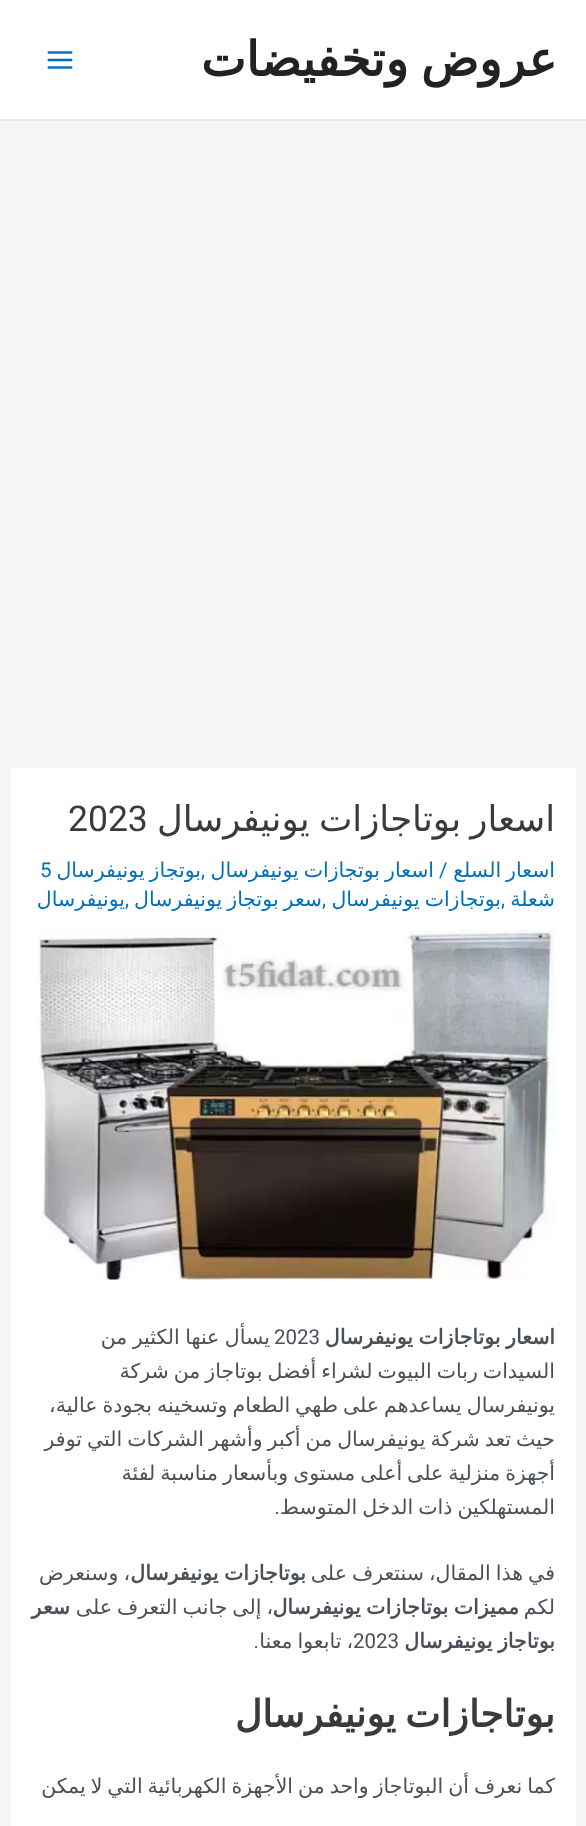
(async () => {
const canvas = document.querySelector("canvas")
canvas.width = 586
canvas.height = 1826
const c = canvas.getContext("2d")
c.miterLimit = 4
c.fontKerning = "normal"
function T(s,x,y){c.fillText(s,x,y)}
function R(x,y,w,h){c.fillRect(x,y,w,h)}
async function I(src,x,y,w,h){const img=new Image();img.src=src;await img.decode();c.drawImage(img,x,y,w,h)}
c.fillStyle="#f5f5f5"
R(0,0,586,1826)
c.fillStyle="#fff"
R(0,0,586,119)
c.fillStyle="#eaeaea"
R(0,119,586,2)
c.wordSpacing="-3px"
c.direction="rtl"
c.font="bold 48px DejaVu Sans"
c.fillStyle="#222"
T("عروض وتخفيضات",557,76)
await I("1.png",47,51,26,18)
c.fillStyle="#fff"
R(11,768,565,1058)
c.wordSpacing="-2px"
c.font="35.5px DejaVu Sans"
c.fillStyle="#3a3a3a"
T("اسعار بوتاجازات يونيفرسال",555,831)
c.wordSpacing="0px"
c.direction="ltr"
c.font="35.5px Roboto"
T("2023",68,831)
c.wordSpacing="-1.5px"
c.direction="rtl"
c.font="20.5px DejaVu Sans"
c.fillStyle="#0170b9"
T("اسعار السلع",555,877)
c.wordSpacing="0px"
c.direction="ltr"
c.font="20.5px Roboto"
T("/",439,877)
c.wordSpacing="-1.5px"
c.direction="rtl"
c.font="20.5px DejaVu Sans"
T("اسعار بوتجازات يونيفرسال",434,877)
c.wordSpacing="0px"
c.direction="ltr"
c.font="20.5px Roboto"
T(",",201,877)
c.wordSpacing="-1.5px"
c.direction="rtl"
c.font="20.5px DejaVu Sans"
T("بوتجاز يونيفرسال",201,877)
c.wordSpacing="0px"
c.direction="ltr"
c.font="20.5px Roboto"
T("5",40,877)
c.direction="rtl"
c.font="20.5px DejaVu Sans"
T("شعلة",555,906)
c.wordSpacing="-1.5px"
T("بوتجازات يونيفرسال",501,906)
c.wordSpacing="0px"
c.direction="ltr"
c.font="20.5px Roboto"
T(",",322,906)
c.wordSpacing="-1.5px"
c.direction="rtl"
c.font="20.5px DejaVu Sans"
T("سعر بوتجاز يونيفرسال",322,906)
c.wordSpacing="0px"
c.direction="ltr"
c.font="20.5px Roboto"
T(",",125,906)
c.direction="rtl"
c.font="20.5px DejaVu Sans"
T("يونيفرسال",125,906)
c.direction="ltr"
c.font="20.5px Roboto"
T(",",501,906)
await I("2.png",38,930,517,350)
c.wordSpacing="-1px"
c.direction="rtl"
c.font="bold 20.5px DejaVu Sans"
c.fillStyle="#4b4f58"
T("اسعار بوتاجازات يونيفرسال",555,1344)
c.wordSpacing="0px"
c.direction="ltr"
c.font="20.5px Roboto"
T("2023",274,1344)
c.wordSpacing="-1px"
c.direction="rtl"
c.font="20.5px DejaVu Sans"
T("يسأل عنها الكثير من",270,1344)
c.wordSpacing="-1.5px"
T("السيدات ربات البيوت لشراء أفضل بوتاجاز من شركة",555,1378)
T("يونيفرسال يساعدهم على طهي الطعام وتسخينه بجودة عالية،",555,1412)
T("حيث تعد شركة يونيفرسال من أكبر وأشهر الشركات التي توفر",555,1446)
T("أجهزة منزلية على أعلى مستوى وبأسعار مناسبة لفئة",555,1480)
T("المستهلكين ذات الدخل المتوسط",555,1514)
c.wordSpacing="0px"
c.font="20.5px Roboto"
T(".",280,1514)
c.wordSpacing="-1.5px"
c.font="20.5px DejaVu Sans"
T("في هذا المقال، سنتعرف على",555,1580)
c.wordSpacing="-1px"
c.font="bold 20.5px DejaVu Sans"
T("بوتاجازات يونيفرسال",306,1580)
c.wordSpacing="-1.5px"
c.font="20.5px DejaVu Sans"
T("، وسنعرض",130,1580)
c.wordSpacing="0px"
T("لكم",555,1614)
c.wordSpacing="-1px"
c.font="bold 20.5px DejaVu Sans"
T("مميزات بوتاجازات يونيفرسال",519,1614)
c.wordSpacing="-1.5px"
c.font="20.5px DejaVu Sans"
T("، إلى جانب التعرف على",273,1614)
c.wordSpacing="0px"
c.font="bold 20.5px DejaVu Sans"
T("سعر",70,1614)
c.wordSpacing="-1px"
T("بوتاجاز يونيفرسال",555,1648)
c.wordSpacing="-1.5px"
c.font="20.5px DejaVu Sans"
T("، تابعوا معنا",353,1648)
c.wordSpacing="0px"
c.direction="ltr"
c.font="20.5px Roboto"
T("2023",353,1648)
c.direction="rtl"
T(".",259,1648)
c.wordSpacing="-3px"
c.font="bold 37.5px DejaVu Sans"
c.fillStyle="#3a3a3a"
T("بوتاجازات يونيفرسال",555,1727)
c.wordSpacing="-1.5px"
c.font="20.5px DejaVu Sans"
c.fillStyle="#4b4f58"
T("كما نعرف أن البوتاجاز واحد من الأجهزة الكهربائية التي لا يمكن",555,1793)
})()
